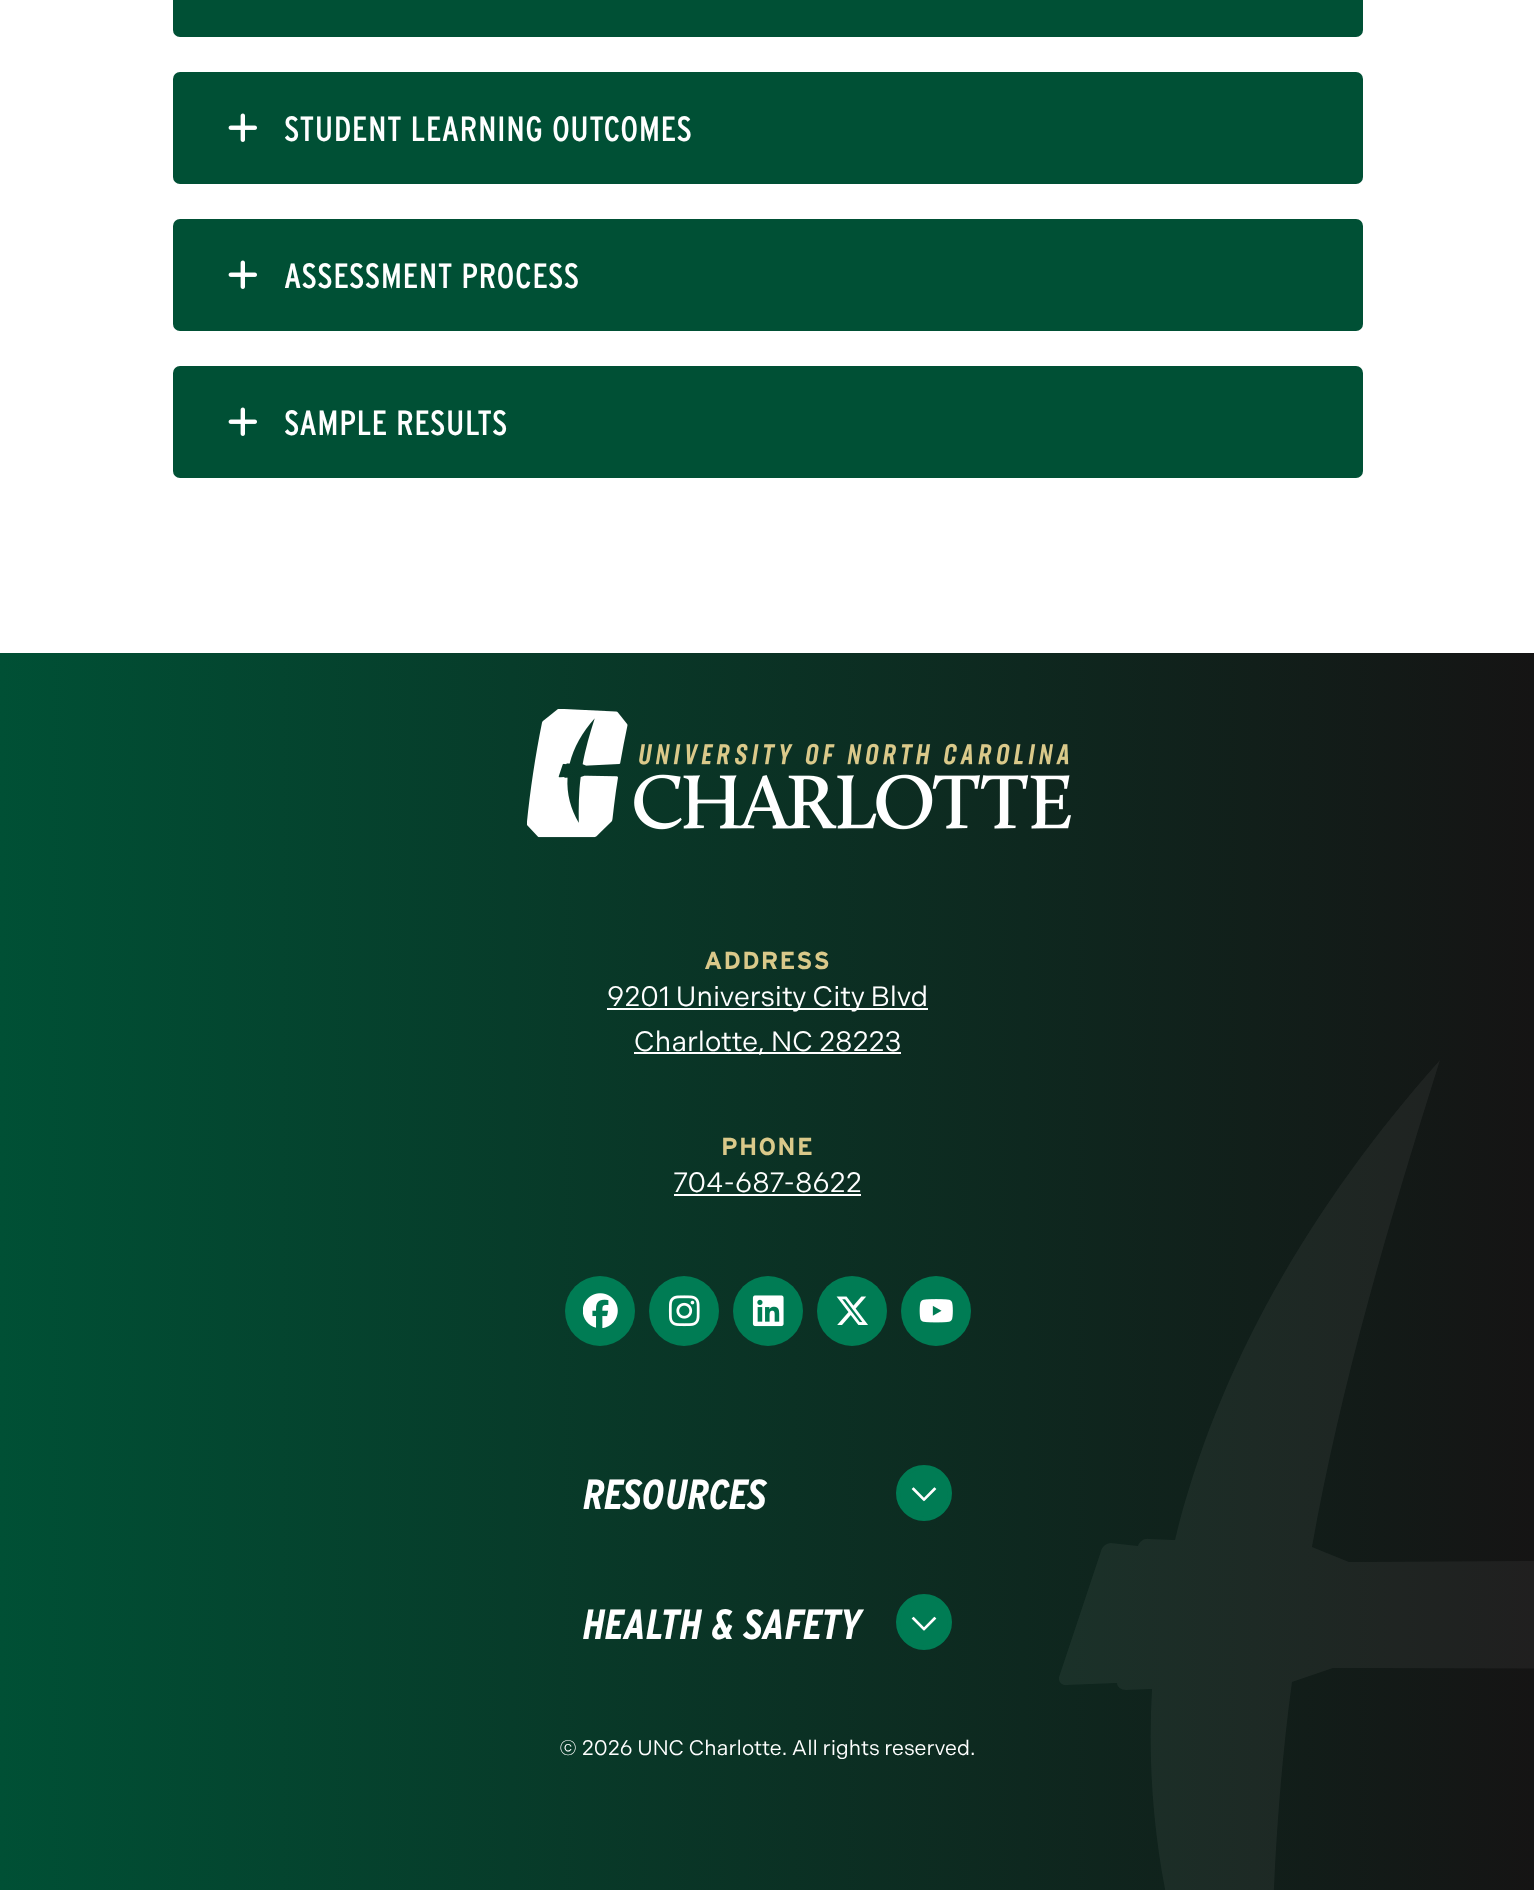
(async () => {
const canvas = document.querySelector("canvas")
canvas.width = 1534
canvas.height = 1890
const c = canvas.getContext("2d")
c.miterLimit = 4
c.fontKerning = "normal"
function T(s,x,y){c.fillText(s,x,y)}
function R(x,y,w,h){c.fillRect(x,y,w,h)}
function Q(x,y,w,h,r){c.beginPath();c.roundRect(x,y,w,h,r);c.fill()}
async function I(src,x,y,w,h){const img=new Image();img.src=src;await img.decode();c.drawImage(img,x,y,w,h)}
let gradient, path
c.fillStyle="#fff"
R(0,0,1534,1890)
c.fillStyle="#005035"
Q(173,-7,1190,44,7)
Q(173,72,1190,112,7)
await I("1.png",228,113,29,29)
c.letterSpacing="0.5px"
c.font="35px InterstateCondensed"
c.fillStyle="#fff"
T("STUDENT LEARNING OUTCOMES",284,141)
c.fillStyle="#005035"
Q(173,219,1190,112,7)
await I("1.png",228,260,29,29)
c.fillStyle="#fff"
T("ASSESSMENT PROCESS",284,288)
c.fillStyle="#005035"
Q(173,366,1190,112,7)
await I("1.png",228,407,29,29)
c.fillStyle="#fff"
T("SAMPLE RESULTS",284,435)
gradient = c.createLinearGradient(0,1272,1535,1272)
gradient.addColorStop(0,"#005035")
gradient.addColorStop(1,"#151414")
c.fillStyle = gradient
R(0,653,1534,1237)
await I("2.png",527,709,544,129)
c.letterSpacing="1.25px"
c.font="bold 24.5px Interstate"
c.fillStyle="#dac98a"
T("ADDRESS",704,969)
c.fillStyle="#fff"
R(607,1008,321,2)
c.letterSpacing="0px"
c.font="28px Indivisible"
T("9201 University City Blvd",607,1006)
R(634,1052,267,2)
T("Charlotte, NC 28223",634,1051)
c.letterSpacing="1.25px"
c.font="bold 24.5px Interstate"
c.fillStyle="#dac98a"
T("PHONE",721,1155)
c.letterSpacing="0px"
c.font="28px Indivisible"
c.fillStyle="#fff"
T("704-687-8622",673,1192)
R(674,1194,187,2)
c.fillStyle="#007c54"
c.beginPath()
c.arc(600,1311,35,0,7)
c.fill()
await I("3.png",583,1293,35,35)
c.beginPath()
c.arc(684,1311,35,0,7)
c.fill()
await I("4.png",668,1295,32,32)
c.beginPath()
c.arc(768,1311,35,0,7)
c.fill()
await I("5.png",752,1295,32,32)
c.beginPath()
c.arc(852,1311,35,0,7)
c.fill()
await I("6.png",836,1296,32,29)
c.beginPath()
c.arc(936,1311,35,0,7)
c.fill()
await I("7.png",919,1299,34,24)
c.font="italic bold 42px InterstateCondensed"
c.fillStyle="#fff"
T("RESOURCES",583,1509)
c.fillStyle="#007c54"
c.beginPath()
c.arc(924,1493,26,0,7)
c.fill()
c.strokeStyle="#007c54"
c.lineWidth=4
c.stroke()
await I("8.png",911,1487,26,15)
c.fillStyle="#fff"
T("HEALTH & SAFETY",583,1639)
c.fillStyle="#007c54"
c.beginPath()
c.arc(924,1622,26,0,7)
c.fill()
c.stroke()
await I("9.png",911,1616,26,15)
c.fillStyle="#ffffff0d"
path = new Path2D("M1292 1682c-22 163-23 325-21 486c-85-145-129-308-119-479l-26 1c-5 0-9-3-9-7l-50 2c-5 1-9-3-8-8l42-126c1-4 5-8 10-8l27 3c1-4 6-8 11-7l26 1c42-172 135-334 265-480c-51 162-99 324-128 487l37 15l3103-18l-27 130l-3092-6z")
c.fill(path)
c.font="21px Indivisible"
c.fillStyle="#fff"
T("© 2026 UNC Charlotte. All rights reserved.",559,1755)
})()
